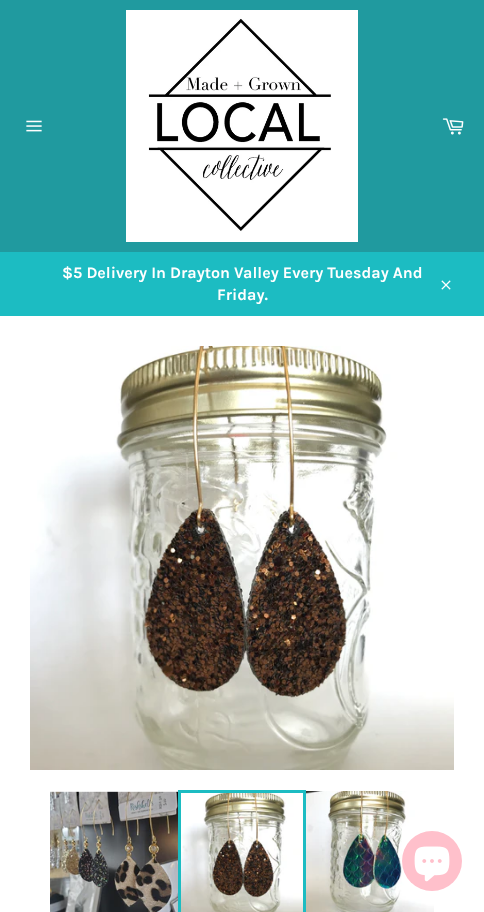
(async () => {
const canvas = document.querySelector("canvas")
canvas.width = 484
canvas.height = 912
const c = canvas.getContext("2d")
c.miterLimit = 4
c.fontKerning = "normal"
function T(s,x,y){c.fillText(s,x,y)}
function R(x,y,w,h){c.fillRect(x,y,w,h)}
async function I(src,x,y,w,h){const img=new Image();img.src=src;await img.decode();c.drawImage(img,x,y,w,h)}
c.fillStyle="#209a9f"
R(0,0,484,912)
await I("1.png",26,120,16,12)
await I("2.png",126,10,232,232)
await I("3.png",442,118,22,17)
c.fillStyle="#1cbcc2"
R(0,252,484,64)
c.font="bold 16px Karla"
c.fillStyle="#fff"
T("$5 Delivery In Drayton Valley Every Tuesday And",62,278)
T("Friday.",217,300)
await I("4.png",441,280,10,10)
R(0,316,484,596)
await I("5.png",30,346,424,424)
await I("6.png",50,791,128,121)
await I("7.png",181,793,122,119)
c.strokeStyle="#1cbcc2"
c.lineWidth=3
c.strokeRect(179.5,791.5,125,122)
await I("8.png",306,791,128,121)
c.fillStyle="#ffc0cb"
c.beginPath()
c.arc(432,861,30,0,7)
c.fill()
await I("9.png",414,846,36,36)
})()
